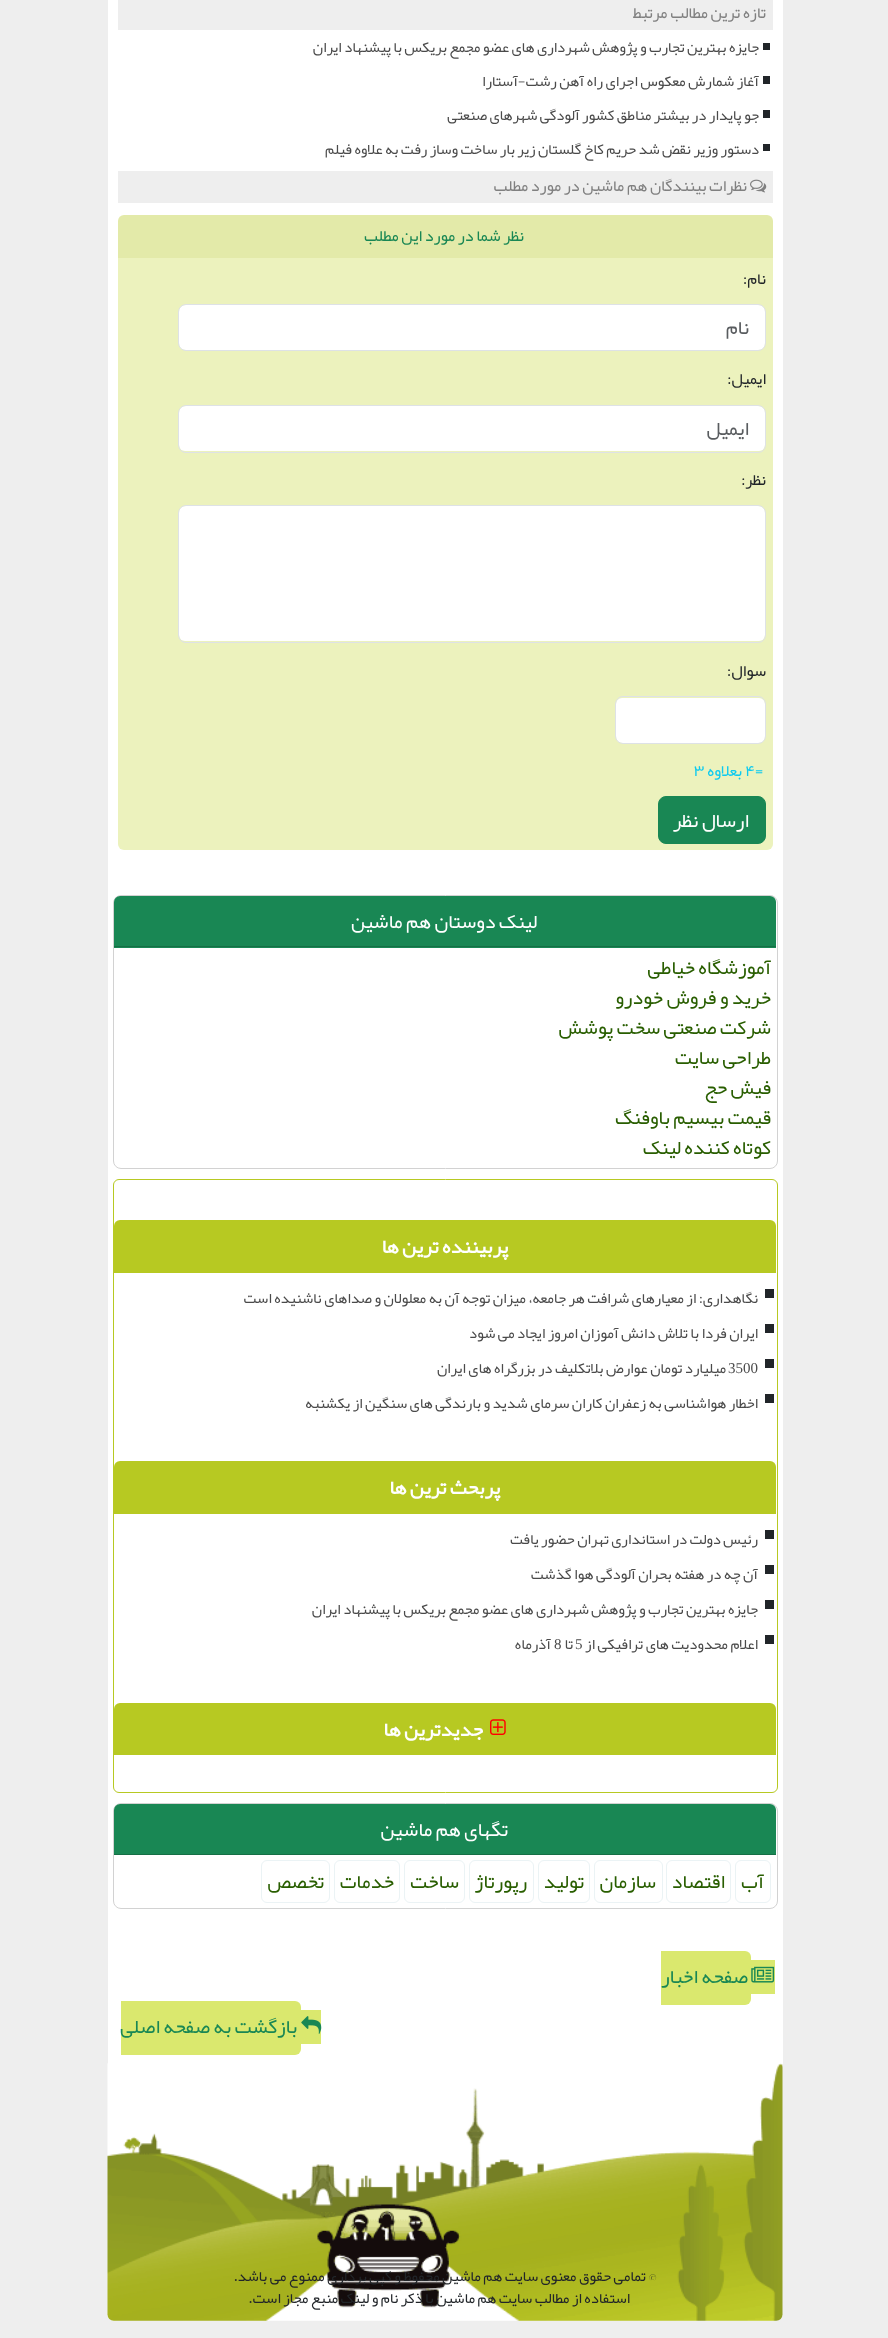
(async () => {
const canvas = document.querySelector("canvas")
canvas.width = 888
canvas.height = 2338
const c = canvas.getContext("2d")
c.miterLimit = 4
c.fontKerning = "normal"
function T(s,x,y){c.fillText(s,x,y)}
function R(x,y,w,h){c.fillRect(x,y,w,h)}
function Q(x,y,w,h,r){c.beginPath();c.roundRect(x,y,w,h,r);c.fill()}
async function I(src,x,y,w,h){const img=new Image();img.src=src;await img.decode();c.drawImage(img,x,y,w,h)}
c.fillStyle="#eee"
R(0,0,888,2338)
c.fillStyle="#fff"
R(108,0,675,2064)
c.fillStyle="#eee"
R(118,0,655,30)
c.direction="rtl"
c.font="16.25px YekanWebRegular"
c.fillStyle="#808080"
T("تازه ترین مطالب مرتبط",766,18)
c.fillStyle="#212529"
R(763,43,7,7)
c.font="15px YekanWebRegular"
c.fillStyle="#4a4a4a"
T("جایزه بهترین تجارب و پژوهش شهرداری های عضو مجمع بریکس با پیشنهاد ایران",759,52)
c.fillStyle="#212529"
R(763,76,7,8)
c.fillStyle="#4a4a4a"
T("آغاز شمارش معکوس اجرای راه آهن رشت-آستارا",759,86)
c.fillStyle="#212529"
R(763,110,7,8)
c.fillStyle="#4a4a4a"
T("جو پایدار در بیشتر مناطق کشور آلودگی شهرهای صنعتی",759,120)
c.fillStyle="#212529"
R(763,144,7,7)
c.fillStyle="#4a4a4a"
T("دستور وزیر نقض شد حریم کاخ گلستان زیر بار ساخت وساز رفت به علاوه فیلم",759,154)
c.fillStyle="#eee"
R(118,171,655,32)
await I("1.png",750,179,17,14)
c.font="16.25px YekanWebRegular"
c.fillStyle="#808080"
T("نظرات بینندگان هم ماشین در مورد مطلب",747,191)
c.fillStyle="#e3eaa9"
c.beginPath()
c.roundRect(118,215,655,43,[6,6,0,0])
c.fill()
c.fillStyle="#198754"
T("نظر شما در مورد این مطلب",524,241)
c.fillStyle="#ecf2bd"
c.beginPath()
c.roundRect(118,258,655,592,[0,0,6,6])
c.fill()
c.fillStyle="#212529"
T("نام:",766,284)
c.fillStyle="#fff"
Q(179,305,586,45,6)
c.beginPath()
c.roundRect(178.5,304.5,587,46,7.5)
c.strokeStyle="#dee2e6"
c.stroke()
c.font="20px YekanWebRegular"
c.fillStyle="#595c5f"
T("نام",749,334)
c.font="16.25px YekanWebRegular"
c.fillStyle="#212529"
T("ایمیل:",766,384)
c.fillStyle="#fff"
Q(179,406,586,45,6)
c.beginPath()
c.roundRect(178.5,405.5,587,47,7.5)
c.stroke()
c.font="20px YekanWebRegular"
c.fillStyle="#595c5f"
T("ایمیل",749,435)
c.font="16.25px YekanWebRegular"
c.fillStyle="#212529"
T("نظر:",766,485)
c.fillStyle="#fff"
Q(179,506,586,135,6)
c.beginPath()
c.roundRect(178.5,505.5,587,137,7.5)
c.stroke()
c.fillStyle="#212529"
T("سوال:",766,676)
c.fillStyle="#fff"
Q(616,698,149,45,6)
c.beginPath()
c.roundRect(615.5,696.5,150,47,7.5)
c.stroke()
c.direction="ltr"
c.fillStyle="#0dcaf0"
T("۴=",745,776)
c.direction="rtl"
T("بعلاوه",742,776)
c.direction="ltr"
T("۳",694,776)
c.fillStyle="#198754"
c.beginPath()
c.roundRect(658.5,796.5,107,47,7.5)
c.fill()
c.strokeStyle="#198754"
c.stroke()
c.direction="rtl"
c.font="20px YekanWebRegular"
c.fillStyle="#fff"
T("ارسال نظر",749,827)
c.beginPath()
c.roundRect(113.5,895.5,664,273,7.5)
c.strokeStyle="#d2d2d2"
c.stroke()
c.fillStyle="#198754"
c.beginPath()
c.roundRect(114,896,662,52,[6,6,0,0])
c.fill()
c.fillStyle="#156f45"
R(114,946,662,1)
c.fillStyle="#fff"
T("لینک دوستان هم ماشین",537,928)
c.fillStyle="#295e00"
T("آموزشگاه خیاطی",771,974)
T("خرید و فروش خودرو",771,1004)
T("شرکت صنعتی سخت پوشش",771,1034)
T("طراحی سایت",771,1064)
T("فیش حج",771,1094)
T("قیمت بیسیم باوفنگ",771,1124)
T("کوتاه کننده لینک",771,1154)
c.beginPath()
c.roundRect(113.5,1179.5,664,613,5.5)
c.strokeStyle="#b7c922"
c.stroke()
c.fillStyle="#b7c922"
c.beginPath()
c.roundRect(114,1220,662,53,[6,6,0,0])
c.fill()
c.font="bold 20px YekanWebRegular"
c.fillStyle="#fff"
T("پربیننده ترین ها",508,1253)
c.fillStyle="#212529"
R(765,1289,9,9)
c.font="15px YekanWebRegular"
c.fillStyle="#4a4a4a"
T("نگاهداری: از معیارهای شرافت هر جامعه، میزان توجه آن به معلولان و صداهای ناشنیده است",758,1303)
c.fillStyle="#212529"
R(765,1324,9,9)
c.fillStyle="#4a4a4a"
T("ایران فردا با تلاش دانش آموزان امروز ایجاد می شود",758,1338)
c.fillStyle="#212529"
R(765,1359,9,9)
c.direction="ltr"
c.font="15px Liberation Serif"
c.fillStyle="#4a4a4a"
T("3500",728,1373)
c.direction="rtl"
c.font="15px YekanWebRegular"
T("میلیارد تومان عوارض بلاتکلیف در بزرگراه های ایران",726,1373)
c.fillStyle="#212529"
R(765,1394,9,9)
c.fillStyle="#4a4a4a"
T("اخطار هواشناسی به زعفران کاران سرمای شدید و بارندگی های سنگین از یکشنبه",758,1408)
c.fillStyle="#b7c922"
c.beginPath()
c.roundRect(114,1461,662,53,[6,6,0,0])
c.fill()
c.font="bold 20px YekanWebRegular"
c.fillStyle="#fff"
T("پربحث ترین ها",500,1494)
c.fillStyle="#212529"
R(765,1530,9,9)
c.font="15px YekanWebRegular"
c.fillStyle="#4a4a4a"
T("رئیس دولت در استانداری تهران حضور یافت",758,1544)
c.fillStyle="#212529"
R(765,1565,9,9)
c.fillStyle="#4a4a4a"
T("آن چه در هفته بحران آلودگی هوا گذشت",758,1579)
c.fillStyle="#212529"
R(765,1600,9,9)
c.fillStyle="#4a4a4a"
T("جایزه بهترین تجارب و پژوهش شهرداری های عضو مجمع بریکس با پیشنهاد ایران",758,1614)
c.fillStyle="#212529"
R(765,1635,9,9)
c.fillStyle="#4a4a4a"
T("اعلام محدودیت های ترافیکی از",758,1649)
c.direction="ltr"
c.font="15px Liberation Serif"
T("5",575,1649)
c.direction="rtl"
c.font="15px YekanWebRegular"
T("تا",573,1649)
c.direction="ltr"
c.font="15px Liberation Serif"
T("8",554,1649)
c.direction="rtl"
c.font="15px YekanWebRegular"
T("آذرماه",551,1649)
c.fillStyle="#b7c922"
c.beginPath()
c.roundRect(114,1703,662,52,[6,6,0,0])
c.fill()
await I("2.png",490,1719,16,16)
c.font="bold 20px YekanWebRegular"
c.fillStyle="#fff"
T("جدیدترین ها",483,1736)
c.beginPath()
c.roundRect(113.5,1803.5,664,105,7.5)
c.strokeStyle="#d2d2d2"
c.stroke()
c.fillStyle="#198754"
c.beginPath()
c.roundRect(114,1804,662,51,[6,6,0,0])
c.fill()
c.fillStyle="#156f45"
R(114,1854,662,1)
c.font="20px YekanWebRegular"
c.fillStyle="#fff"
T("تگهای هم ماشین",508,1836)
c.beginPath()
c.roundRect(735.5,1860.5,35,42,5.5)
c.strokeStyle="#ebf3f5"
c.stroke()
c.fillStyle="#295e00"
T("آب",764,1888)
c.beginPath()
c.roundRect(666.5,1860.5,64,42,5.5)
c.stroke()
T("اقتصاد",725,1888)
c.beginPath()
c.roundRect(594.5,1860.5,68,42,5.5)
c.stroke()
T("سازمان",656,1888)
c.beginPath()
c.roundRect(538.5,1860.5,51,42,5.5)
c.stroke()
T("تولید",584,1888)
c.beginPath()
c.roundRect(469.5,1860.5,64,42,5.5)
c.stroke()
T("رپورتاژ",527,1888)
c.beginPath()
c.roundRect(404.5,1860.5,60,42,5.5)
c.stroke()
T("ساخت",459,1888)
c.beginPath()
c.roundRect(334.5,1860.5,65,42,5.5)
c.stroke()
T("خدمات",394,1888)
c.beginPath()
c.roundRect(261.5,1860.5,68,42,5.5)
c.stroke()
T("تخصص",324,1888)
c.fillStyle="#dae86e"
R(751,1960,24,34)
c.beginPath()
c.roundRect(661,1951,90,54,[0,6,6,0])
c.fill()
await I("3.png",751,1966,24,17)
c.fillStyle="#198754"
T("صفحه اخبار",748,1983)
c.fillStyle="#dae86e"
R(301,2010,20,34)
c.beginPath()
c.roundRect(121,2001,180,54,[0,6,6,0])
c.fill()
await I("4.png",301,2016,21,18)
c.fillStyle="#198754"
T("بازگشت به صفحه اصلی",297,2033)
await I("5.png",107,2063,676,258)
c.font="15px YekanWebRegular"
c.fillStyle="#212529"
T("© تمامی حقوق معنوی سایت هم ماشین محفوظ و کپی برداری ممنوع می باشد.",656,2281)
T("استفاده از مطالب سایت هم ماشین با ذکر نام و لینک منبع مجاز است.",630,2303)
})()
